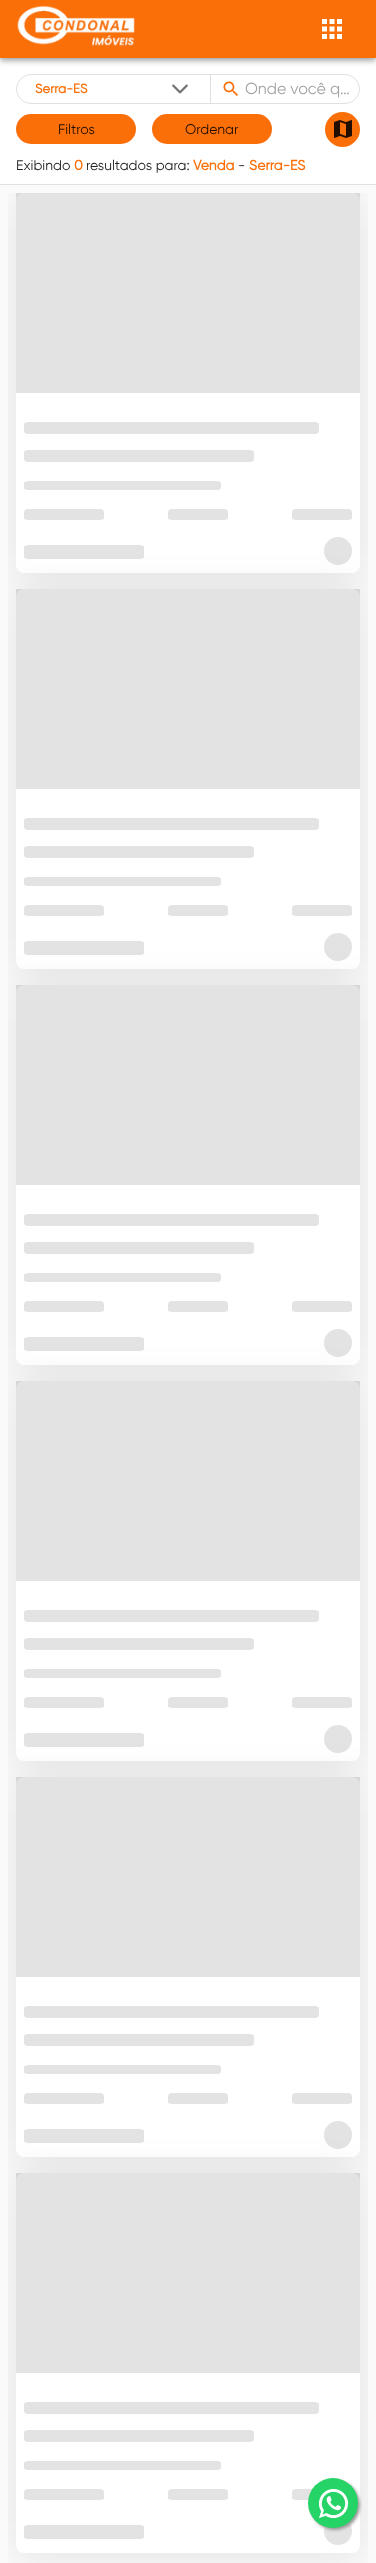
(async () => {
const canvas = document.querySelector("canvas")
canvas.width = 376
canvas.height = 2563
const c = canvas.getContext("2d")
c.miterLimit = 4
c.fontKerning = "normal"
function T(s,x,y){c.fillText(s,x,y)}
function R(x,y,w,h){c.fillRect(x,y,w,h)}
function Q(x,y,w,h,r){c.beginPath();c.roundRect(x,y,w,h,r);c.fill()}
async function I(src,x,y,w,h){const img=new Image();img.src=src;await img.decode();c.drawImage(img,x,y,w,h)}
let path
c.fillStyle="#fafafa"
R(0,0,376,2563)
c.fillStyle="#fff"
R(0,58,376,126)
c.beginPath()
c.roundRect(16.5,74.5,343,29,14.5)
c.strokeStyle="#e0e0e0"
c.stroke()
c.fillStyle="#0000001f"
c.filter="blur(5px)"
c.beginPath()
c.rect(0,1,376,58)
c.fill()
c.filter="none"
c.fillStyle="#00000024"
c.filter="blur(2.5px)"
c.beginPath()
c.rect(0,4,376,58)
c.fill()
c.filter="none"
c.fillStyle="#00000033"
c.filter="blur(2px)"
c.beginPath()
c.rect(1,3,374,56)
c.fill()
c.filter="none"
c.fillStyle="#fb6f08"
R(0,0,376,58)
await I("1.png",17,5,118,41)
await I("2.png",322,19,20,20)
c.fillStyle="#e0e0e0"
R(210,75,1,28)
c.font="bold 13px Gilroy"
c.fillStyle="#fb6f08"
T("Serra-ES",35,93)
await I("3.png",172,84,16,10)
await I("4.png",223,81,15,15)
c.font="16px Gilroy"
c.fillStyle="#a2a2a2"
T("Onde você q…",245,94)
c.fillStyle="#fb6f08"
Q(16,114,120,30,15)
c.font="14px Gilroy"
c.fillStyle="#210e01"
T("Filtros",58,134)
c.fillStyle="#fb6f08"
Q(152,114,120,30,15)
c.fillStyle="#210e01"
T("Ordenar",185,134)
c.fillStyle="#fb6f08"
c.beginPath()
c.arc(342.5,129.5,17.5,0,7)
c.fill()
await I("5.png",334,120,18,18)
c.fillStyle="#e0e0e0"
R(0,184,376,1)
c.fillStyle="#212121"
T("Exibindo",16,170)
c.font="bold 14px Gilroy"
c.fillStyle="#fb6f08"
T("0",74,170)
c.font="14px Gilroy"
c.fillStyle="#212121"
T("resultados para:",86,170)
c.font="bold 14px Gilroy"
c.fillStyle="#fb6f08"
T("Venda",193,170)
c.font="14px Gilroy"
c.fillStyle="#212121"
T("-",238,170)
c.font="bold 14px Gilroy"
c.fillStyle="#fb6f08"
T("Serra-ES",249,170)
c.save()
c.beginPath()
c.rect(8,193,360,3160)
c.clip()
c.fillStyle="#00000017"
c.filter="blur(20px)"
c.beginPath()
c.roundRect(16,197,344,380,8)
c.fill()
c.filter="none"
c.restore()
c.fillStyle="#fff"
Q(16,193,344,380,8)
c.fillStyle="#0000001c"
R(16,193,344,200)
c.fillStyle="#e3e3e3"
path = new Path2D("M28 422h287c2 0 4 1 4 2v7c0 2-2 3-4 3h-287c-2 0-4-1-4-3v-7c0-1 2-2 4-2z")
c.fill(path)
path = new Path2D("M28 450h222c2 0 4 1 4 2v7c0 2-2 3-4 3h-222c-2 0-4-1-4-3v-7c0-1 2-2 4-2z")
c.fill(path)
path = new Path2D("M28 481h189c2 0 4 1 4 2v5c0 1-2 2-4 2h-189c-2 0-4-1-4-2v-5c0-1 2-2 4-2z")
c.fill(path)
path = new Path2D("M28 509h72c2 0 4 1 4 3v6c0 1-2 2-4 2h-72c-2 0-4-1-4-2v-6c0-2 2-3 4-3z")
c.fill(path)
path = new Path2D("M172 509h52c2 0 4 1 4 3v6c0 1-2 2-4 2h-52c-2 0-4-1-4-2v-6c0-2 2-3 4-3z")
c.fill(path)
path = new Path2D("M296 509h52c2 0 4 1 4 3v6c0 1-2 2-4 2h-52c-2 0-4-1-4-2v-6c0-2 2-3 4-3z")
c.fill(path)
path = new Path2D("M28 545h112c2 0 4 1 4 2v10c0 1-2 2-4 2h-112c-2 0-4-1-4-2v-10c0-1 2-2 4-2z")
c.fill(path)
c.beginPath()
c.arc(338,551,14,0,7)
c.fill()
c.save()
c.beginPath()
c.rect(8,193,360,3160)
c.clip()
c.fillStyle="#00000017"
c.filter="blur(20px)"
c.beginPath()
c.roundRect(16,593,344,380,8)
c.fill()
c.filter="none"
c.restore()
c.fillStyle="#fff"
Q(16,589,344,380,8)
c.fillStyle="#0000001c"
R(16,589,344,200)
c.fillStyle="#e3e3e3"
path = new Path2D("M28 818h287c2 0 4 1 4 2v7c0 2-2 3-4 3h-287c-2 0-4-1-4-3v-7c0-1 2-2 4-2z")
c.fill(path)
path = new Path2D("M28 846h222c2 0 4 1 4 2v7c0 2-2 3-4 3h-222c-2 0-4-1-4-3v-7c0-1 2-2 4-2z")
c.fill(path)
path = new Path2D("M28 877h189c2 0 4 1 4 2v5c0 1-2 2-4 2h-189c-2 0-4-1-4-2v-5c0-1 2-2 4-2z")
c.fill(path)
path = new Path2D("M28 905h72c2 0 4 1 4 3v6c0 1-2 2-4 2h-72c-2 0-4-1-4-2v-6c0-2 2-3 4-3z")
c.fill(path)
path = new Path2D("M172 905h52c2 0 4 1 4 3v6c0 1-2 2-4 2h-52c-2 0-4-1-4-2v-6c0-2 2-3 4-3z")
c.fill(path)
path = new Path2D("M296 905h52c2 0 4 1 4 3v6c0 1-2 2-4 2h-52c-2 0-4-1-4-2v-6c0-2 2-3 4-3z")
c.fill(path)
path = new Path2D("M28 941h112c2 0 4 1 4 2v10c0 1-2 2-4 2h-112c-2 0-4-1-4-2v-10c0-1 2-2 4-2z")
c.fill(path)
c.beginPath()
c.arc(338,947,14,0,7)
c.fill()
c.save()
c.beginPath()
c.rect(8,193,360,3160)
c.clip()
c.fillStyle="#00000017"
c.filter="blur(20px)"
c.beginPath()
c.roundRect(16,989,344,380,8)
c.fill()
c.filter="none"
c.restore()
c.fillStyle="#fff"
Q(16,985,344,380,8)
c.fillStyle="#0000001c"
R(16,985,344,200)
c.fillStyle="#e3e3e3"
path = new Path2D("M28 1214h287c2 0 4 1 4 2v7c0 2-2 3-4 3h-287c-2 0-4-1-4-3v-7c0-1 2-2 4-2z")
c.fill(path)
path = new Path2D("M28 1242h222c2 0 4 1 4 2v7c0 2-2 3-4 3h-222c-2 0-4-1-4-3v-7c0-1 2-2 4-2z")
c.fill(path)
path = new Path2D("M28 1273h189c2 0 4 1 4 2v5c0 1-2 2-4 2h-189c-2 0-4-1-4-2v-5c0-1 2-2 4-2z")
c.fill(path)
path = new Path2D("M28 1301h72c2 0 4 1 4 3v6c0 1-2 2-4 2h-72c-2 0-4-1-4-2v-6c0-2 2-3 4-3z")
c.fill(path)
path = new Path2D("M172 1301h52c2 0 4 1 4 3v6c0 1-2 2-4 2h-52c-2 0-4-1-4-2v-6c0-2 2-3 4-3z")
c.fill(path)
path = new Path2D("M296 1301h52c2 0 4 1 4 3v6c0 1-2 2-4 2h-52c-2 0-4-1-4-2v-6c0-2 2-3 4-3z")
c.fill(path)
path = new Path2D("M28 1337h112c2 0 4 1 4 2v10c0 1-2 2-4 2h-112c-2 0-4-1-4-2v-10c0-1 2-2 4-2z")
c.fill(path)
c.beginPath()
c.arc(338,1343,14,0,7)
c.fill()
c.save()
c.beginPath()
c.rect(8,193,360,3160)
c.clip()
c.fillStyle="#00000017"
c.filter="blur(20px)"
c.beginPath()
c.roundRect(16,1385,344,380,8)
c.fill()
c.filter="none"
c.restore()
c.fillStyle="#fff"
Q(16,1381,344,380,8)
c.fillStyle="#0000001c"
R(16,1381,344,200)
c.fillStyle="#e3e3e3"
path = new Path2D("M28 1610h287c2 0 4 1 4 2v7c0 2-2 3-4 3h-287c-2 0-4-1-4-3v-7c0-1 2-2 4-2z")
c.fill(path)
path = new Path2D("M28 1638h222c2 0 4 1 4 2v7c0 2-2 3-4 3h-222c-2 0-4-1-4-3v-7c0-1 2-2 4-2z")
c.fill(path)
path = new Path2D("M28 1669h189c2 0 4 1 4 2v5c0 1-2 2-4 2h-189c-2 0-4-1-4-2v-5c0-1 2-2 4-2z")
c.fill(path)
path = new Path2D("M28 1697h72c2 0 4 1 4 3v6c0 1-2 2-4 2h-72c-2 0-4-1-4-2v-6c0-2 2-3 4-3z")
c.fill(path)
path = new Path2D("M172 1697h52c2 0 4 1 4 3v6c0 1-2 2-4 2h-52c-2 0-4-1-4-2v-6c0-2 2-3 4-3z")
c.fill(path)
path = new Path2D("M296 1697h52c2 0 4 1 4 3v6c0 1-2 2-4 2h-52c-2 0-4-1-4-2v-6c0-2 2-3 4-3z")
c.fill(path)
path = new Path2D("M28 1733h112c2 0 4 1 4 2v10c0 1-2 2-4 2h-112c-2 0-4-1-4-2v-10c0-1 2-2 4-2z")
c.fill(path)
c.beginPath()
c.arc(338,1739,14,0,7)
c.fill()
c.save()
c.beginPath()
c.rect(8,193,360,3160)
c.clip()
c.fillStyle="#00000017"
c.filter="blur(20px)"
c.beginPath()
c.roundRect(16,1781,344,380,8)
c.fill()
c.filter="none"
c.restore()
c.fillStyle="#fff"
Q(16,1777,344,380,8)
c.fillStyle="#0000001c"
R(16,1777,344,200)
c.fillStyle="#e3e3e3"
path = new Path2D("M28 2006h287c2 0 4 1 4 2v7c0 2-2 3-4 3h-287c-2 0-4-1-4-3v-7c0-1 2-2 4-2z")
c.fill(path)
path = new Path2D("M28 2034h222c2 0 4 1 4 2v7c0 2-2 3-4 3h-222c-2 0-4-1-4-3v-7c0-1 2-2 4-2z")
c.fill(path)
path = new Path2D("M28 2065h189c2 0 4 1 4 2v5c0 1-2 2-4 2h-189c-2 0-4-1-4-2v-5c0-1 2-2 4-2z")
c.fill(path)
path = new Path2D("M28 2093h72c2 0 4 1 4 3v6c0 1-2 2-4 2h-72c-2 0-4-1-4-2v-6c0-2 2-3 4-3z")
c.fill(path)
path = new Path2D("M172 2093h52c2 0 4 1 4 3v6c0 1-2 2-4 2h-52c-2 0-4-1-4-2v-6c0-2 2-3 4-3z")
c.fill(path)
path = new Path2D("M296 2093h52c2 0 4 1 4 3v6c0 1-2 2-4 2h-52c-2 0-4-1-4-2v-6c0-2 2-3 4-3z")
c.fill(path)
path = new Path2D("M28 2129h112c2 0 4 1 4 2v10c0 1-2 2-4 2h-112c-2 0-4-1-4-2v-10c0-1 2-2 4-2z")
c.fill(path)
c.beginPath()
c.arc(338,2135,14,0,7)
c.fill()
c.save()
c.beginPath()
c.rect(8,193,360,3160)
c.clip()
c.fillStyle="#00000017"
c.filter="blur(20px)"
c.beginPath()
c.roundRect(16,2177,344,380,8)
c.fill()
c.filter="none"
c.restore()
c.fillStyle="#fff"
Q(16,2173,344,380,8)
c.fillStyle="#0000001c"
R(16,2173,344,200)
c.fillStyle="#e3e3e3"
path = new Path2D("M28 2402h287c2 0 4 1 4 2v7c0 2-2 3-4 3h-287c-2 0-4-1-4-3v-7c0-1 2-2 4-2z")
c.fill(path)
path = new Path2D("M28 2430h222c2 0 4 1 4 2v7c0 2-2 3-4 3h-222c-2 0-4-1-4-3v-7c0-1 2-2 4-2z")
c.fill(path)
path = new Path2D("M28 2461h189c2 0 4 1 4 2v5c0 1-2 2-4 2h-189c-2 0-4-1-4-2v-5c0-1 2-2 4-2z")
c.fill(path)
path = new Path2D("M28 2489h72c2 0 4 1 4 3v6c0 1-2 2-4 2h-72c-2 0-4-1-4-2v-6c0-2 2-3 4-3z")
c.fill(path)
path = new Path2D("M172 2489h52c2 0 4 1 4 3v6c0 1-2 2-4 2h-52c-2 0-4-1-4-2v-6c0-2 2-3 4-3z")
c.fill(path)
path = new Path2D("M296 2489h52c2 0 4 1 4 3v6c0 1-2 2-4 2h-52c-2 0-4-1-4-2v-6c0-2 2-3 4-3z")
c.fill(path)
path = new Path2D("M28 2525h112c2 0 4 1 4 2v10c0 1-2 2-4 2h-112c-2 0-4-1-4-2v-10c0-1 2-2 4-2z")
c.fill(path)
c.beginPath()
c.arc(338,2531,14,0,7)
c.fill()
c.fillStyle="#999"
c.filter="blur(1.5px)"
c.beginPath()
c.roundRect(310,2480,50,50,25)
c.fill()
c.filter="none"
c.fillStyle="#25d366"
c.beginPath()
c.arc(333,2503,25,0,7)
c.fill()
await I("6.png",318,2488,31,31)
})()
